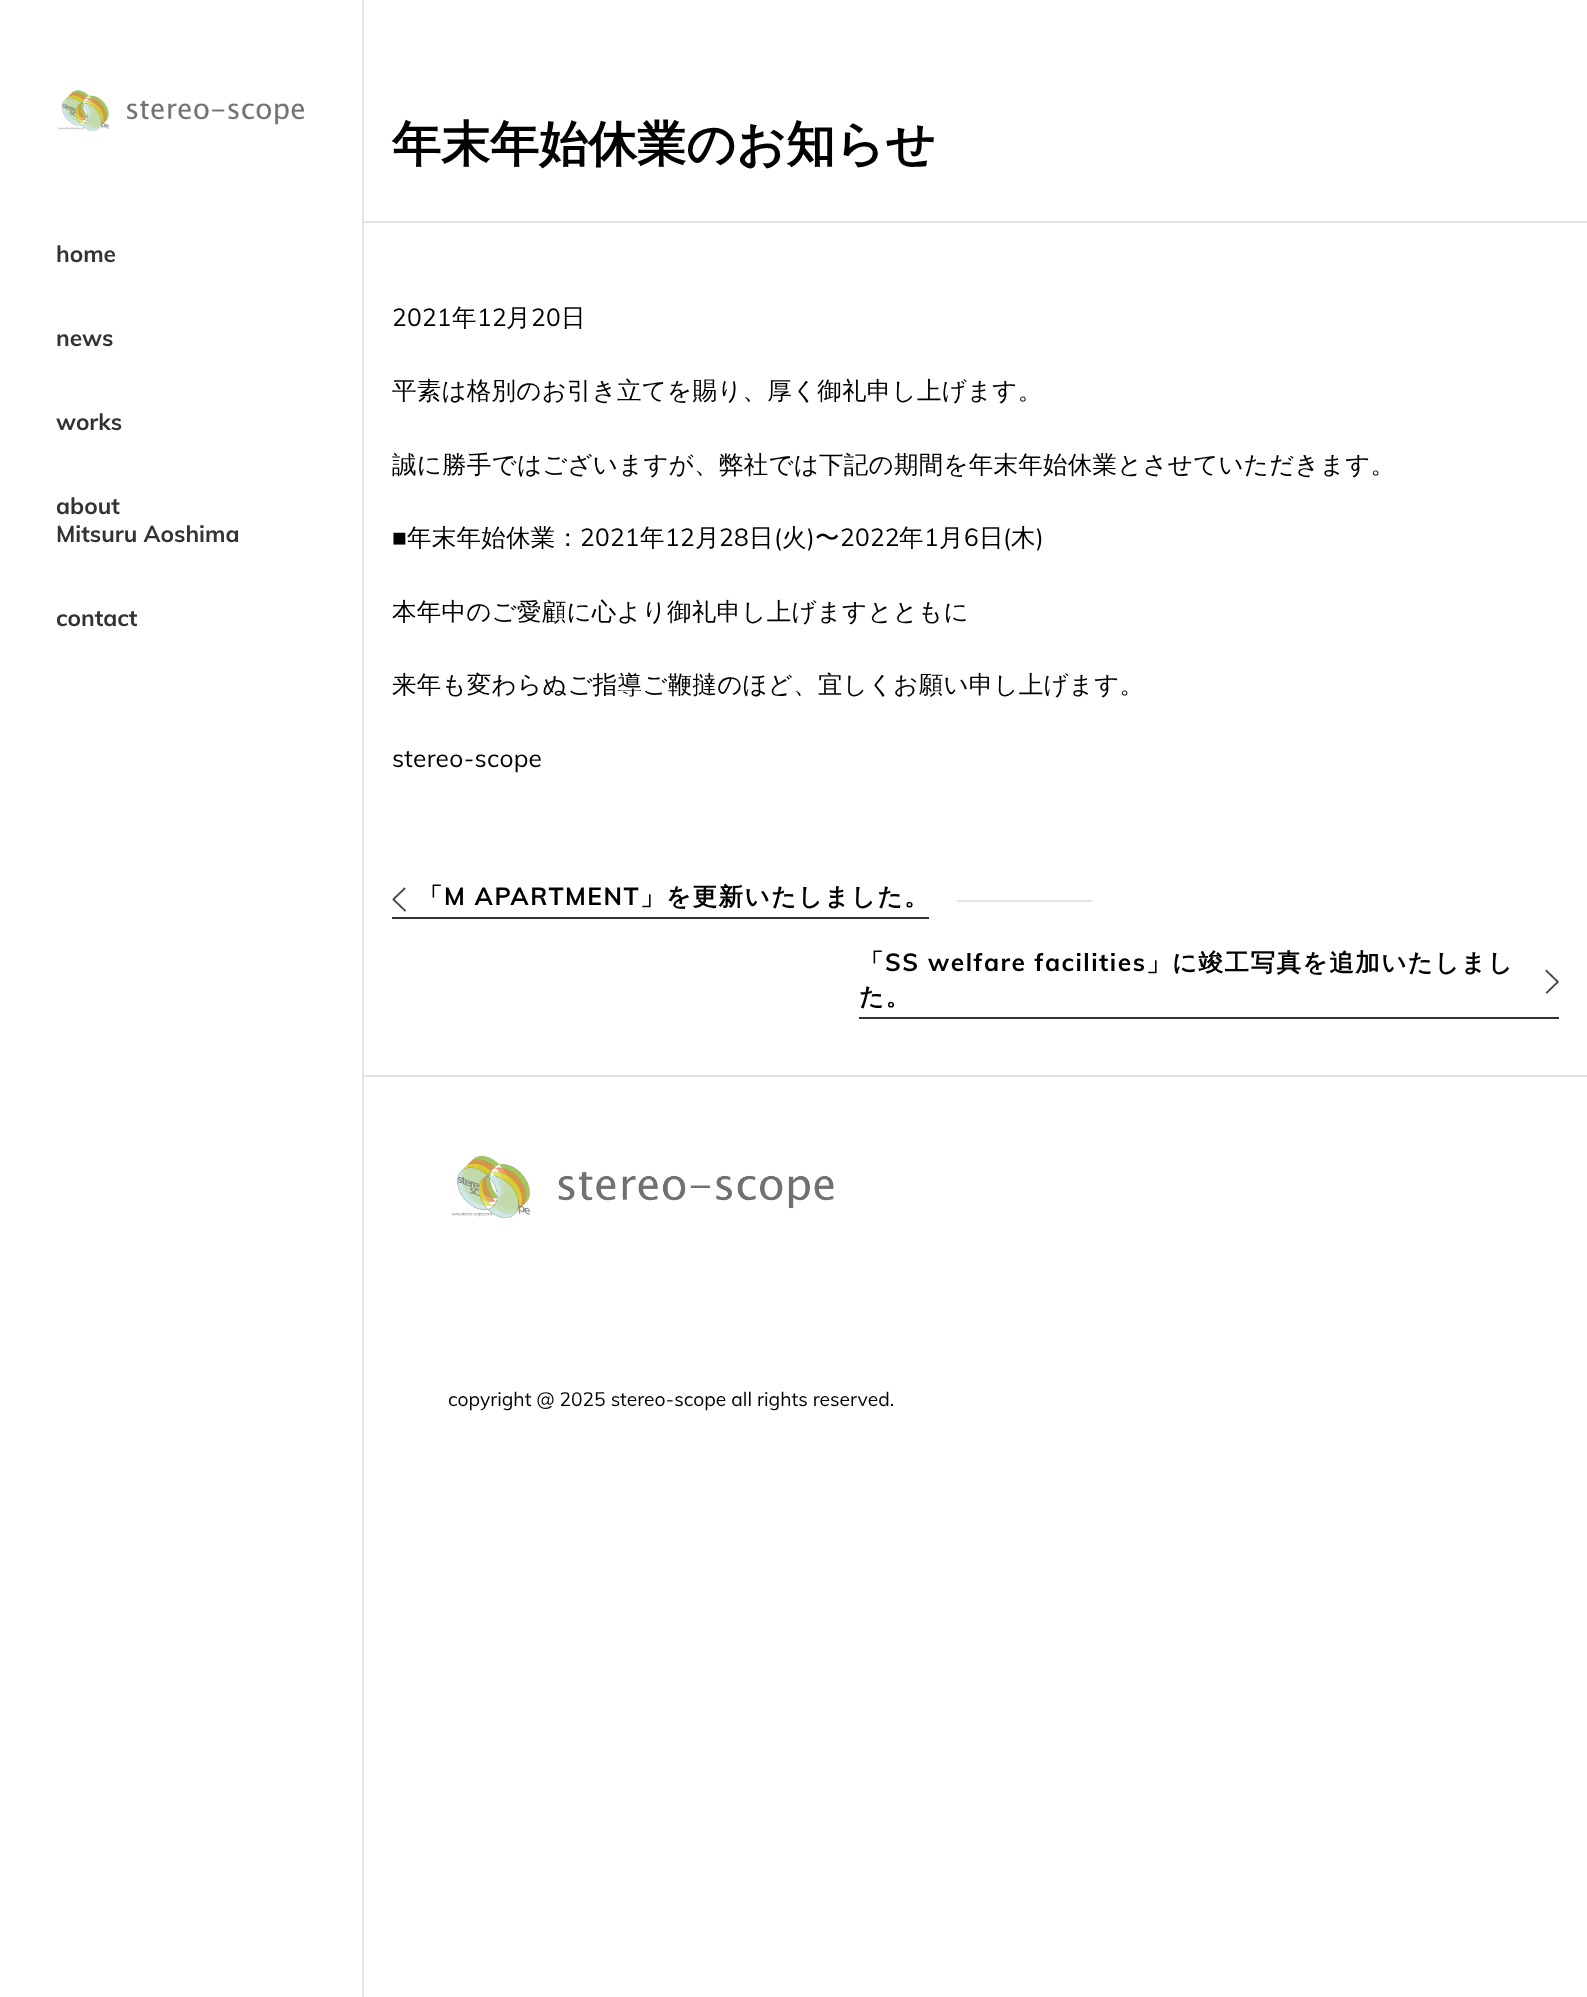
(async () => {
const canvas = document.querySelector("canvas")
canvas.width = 1587
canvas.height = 1997
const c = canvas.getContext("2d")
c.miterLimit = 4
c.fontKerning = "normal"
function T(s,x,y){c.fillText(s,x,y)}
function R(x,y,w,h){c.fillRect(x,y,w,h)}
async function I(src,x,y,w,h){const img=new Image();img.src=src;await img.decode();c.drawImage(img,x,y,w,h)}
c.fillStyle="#fff"
R(0,0,1587,1997)
c.fillStyle="#e3e3e3"
R(362,0,2,1997)
await I("1.png",58,90,246,41)
c.font="bold 22.75px Muli"
c.fillStyle="#333"
T("home",56,262)
T("news",56,346)
T("works",56,430)
T("about",56,514)
T("Mitsuru Aoshima",56,542)
T("contact",56,626)
c.fillStyle="#e3e3e3"
R(364,221,1223,2)
c.font="bold 49px WenQuanYi Zen Hei"
c.fillStyle="#000"
T("年末年始休業のお知らせ",392,161)
c.letterSpacing="0.25px"
c.font="24.5px Muli"
T("2021",392,326)
c.font="500 24.5px WenQuanYi Zen Hei"
T("年",452,326)
c.font="24.5px Muli"
T("12",477,326)
c.font="500 24.5px WenQuanYi Zen Hei"
T("月",506,326)
c.font="24.5px Muli"
T("20",531,326)
c.font="500 24.5px WenQuanYi Zen Hei"
T("日",561,326)
T("平素は格別のお引き立てを賜り、厚く御礼申し上げます。",392,399)
T("誠に勝手ではございますが、弊社では下記の期間を年末年始休業とさせていただきます。",392,473)
c.font="24.5px Liberation Sans"
T("■",392,546)
c.font="500 24.5px WenQuanYi Zen Hei"
T("年末年始休業：",407,546)
c.font="24.5px Muli"
T("2021",580,546)
c.font="500 24.5px WenQuanYi Zen Hei"
T("年",640,546)
c.font="24.5px Muli"
T("12",665,546)
c.font="500 24.5px WenQuanYi Zen Hei"
T("月",695,546)
c.font="24.5px Muli"
T("28",719,546)
c.font="500 24.5px WenQuanYi Zen Hei"
T("日",749,546)
c.font="24.5px Muli"
T("(",774,546)
c.font="500 24.5px WenQuanYi Zen Hei"
T("火",782,546)
c.font="24.5px Muli"
T(")",807,546)
c.font="500 24.5px WenQuanYi Zen Hei"
T("〜",815,546)
c.font="24.5px Muli"
T("2022",840,546)
c.font="500 24.5px WenQuanYi Zen Hei"
T("年",899,546)
c.font="24.5px Muli"
T("1",924,546)
c.font="500 24.5px WenQuanYi Zen Hei"
T("月",939,546)
c.font="24.5px Muli"
T("6",964,546)
c.font="500 24.5px WenQuanYi Zen Hei"
T("日",979,546)
c.font="24.5px Muli"
T("(",1003,546)
c.font="500 24.5px WenQuanYi Zen Hei"
T("木",1011,546)
c.font="24.5px Muli"
T(")",1036,546)
c.font="500 24.5px WenQuanYi Zen Hei"
T("本年中のご愛顧に心より御礼申し上げますとともに",392,620)
T("来年も変わらぬご指導ご鞭撻のほど、宜しくお願い申し上げます。",392,693)
c.font="24.5px Muli"
T("stereo-scope",392,767)
c.fillStyle="#333"
R(392,917,537,2)
await I("2.png",392,887,14,25)
c.letterSpacing="1.5px"
c.font="bold 24.5px WenQuanYi Zen Hei"
c.fillStyle="#000"
T("「",418,905)
c.font="bold 24.5px Muli"
T("M APARTMENT",444,905)
c.font="bold 24.5px WenQuanYi Zen Hei"
T("」を更新いたしました。",640,905)
c.fillStyle="#e3e3e3"
R(957,900,135,2)
c.fillStyle="#333"
R(859,1017,700,2)
c.fillStyle="#000"
T("「",859,971)
c.font="bold 24.5px Muli"
T("SS welfare facilities",885,971)
c.font="bold 24.5px WenQuanYi Zen Hei"
T("」に竣工写真を追加いたしまし",1146,971)
await I("3.png",1545,969,15,25)
T("た。",859,1005)
c.fillStyle="#e3e3e3"
R(364,1075,1223,2)
await I("4.png",451,1155,383,63)
c.letterSpacing="0px"
c.font="19.25px Muli"
c.fillStyle="#000"
T("copyright @ 2025 stereo-scope all rights reserved.",448,1406)
})()
